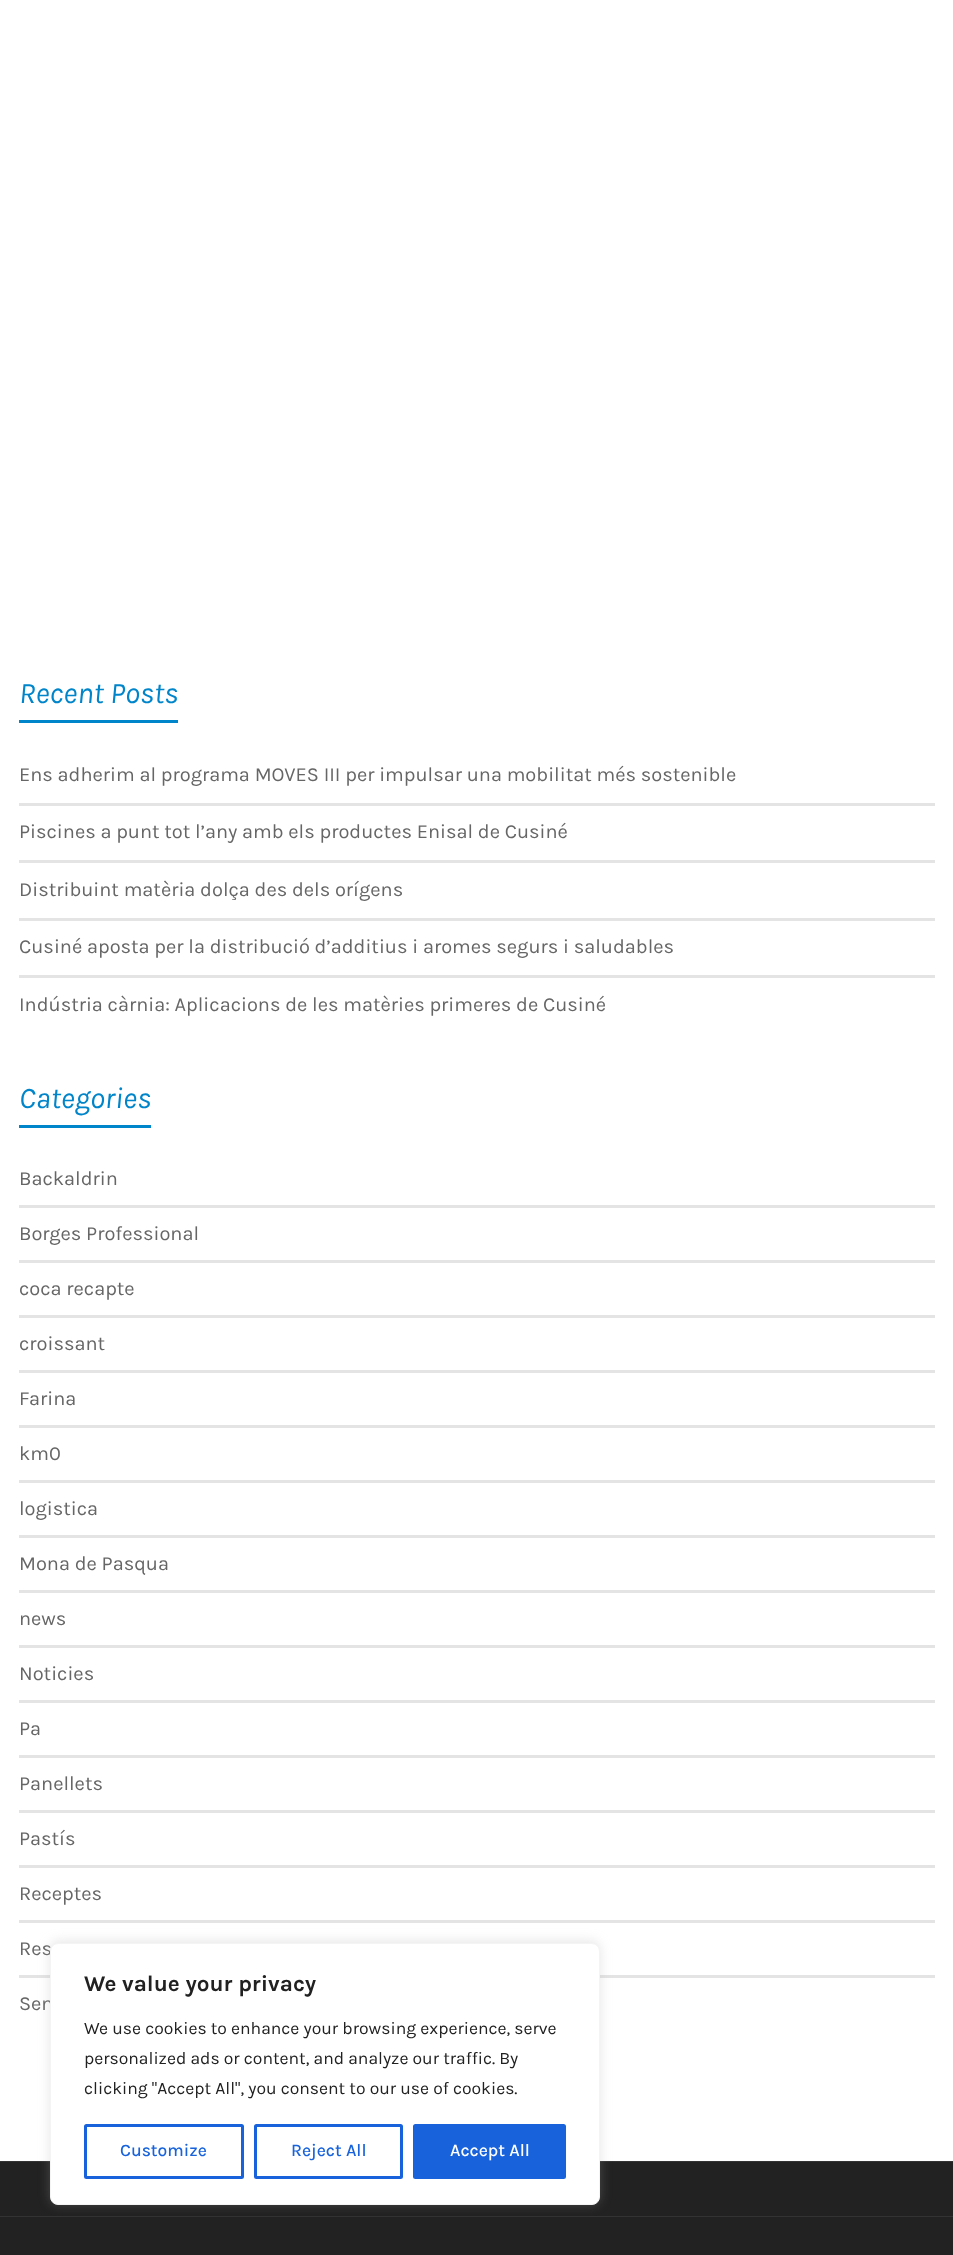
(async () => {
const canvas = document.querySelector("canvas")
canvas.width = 953
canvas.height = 2255
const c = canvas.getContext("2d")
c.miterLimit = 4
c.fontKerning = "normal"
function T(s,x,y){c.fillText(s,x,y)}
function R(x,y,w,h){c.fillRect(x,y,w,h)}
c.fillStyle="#222"
R(0,0,953,2255)
c.fillStyle="#fff"
R(0,0,953,2161)
c.fillStyle="#0085ca"
R(19,720,159,3)
c.font="italic 30px Karla"
T("Recent Posts",19,703)
c.font="20px Karla"
c.fillStyle="#666"
T("Ens adherim al programa MOVES III per impulsar una mobilitat més sostenible",19,781)
c.fillStyle="#e4e4e4"
R(19,803,916,3)
c.fillStyle="#666"
T("Piscines a punt tot l’any amb els productes Enisal de Cusiné",19,838)
c.fillStyle="#e4e4e4"
R(19,860,916,3)
c.fillStyle="#666"
T("Distribuint matèria dolça des dels orígens",19,896)
c.fillStyle="#e4e4e4"
R(19,918,916,3)
c.fillStyle="#666"
T("Cusiné aposta per la distribució d’additius i aromes segurs i saludables",19,953)
c.fillStyle="#e4e4e4"
R(19,975,916,3)
c.fillStyle="#666"
T("Indústria càrnia: Aplicacions de les matèries primeres de Cusiné",19,1011)
c.fillStyle="#0085ca"
R(19,1125,132,3)
c.font="italic 30px Karla"
T("Categories",19,1108)
c.font="20px Karla"
c.fillStyle="#666"
T("Backaldrin",19,1185)
c.fillStyle="#e4e4e4"
R(19,1205,916,3)
c.fillStyle="#666"
T("Borges Professional",19,1240)
c.fillStyle="#e4e4e4"
R(19,1260,916,3)
c.fillStyle="#666"
T("coca recapte",19,1295)
c.fillStyle="#e4e4e4"
R(19,1315,916,3)
c.fillStyle="#666"
T("croissant",19,1350)
c.fillStyle="#e4e4e4"
R(19,1370,916,3)
c.fillStyle="#666"
T("Farina",19,1405)
c.fillStyle="#e4e4e4"
R(19,1425,916,3)
c.fillStyle="#666"
T("km0",19,1460)
c.fillStyle="#e4e4e4"
R(19,1480,916,3)
c.fillStyle="#666"
T("logistica",19,1515)
c.fillStyle="#e4e4e4"
R(19,1535,916,3)
c.fillStyle="#666"
T("Mona de Pasqua",19,1570)
c.fillStyle="#e4e4e4"
R(19,1590,916,3)
c.fillStyle="#666"
T("news",19,1625)
c.fillStyle="#e4e4e4"
R(19,1645,916,3)
c.fillStyle="#666"
T("Noticies",19,1680)
c.fillStyle="#e4e4e4"
R(19,1700,916,3)
c.fillStyle="#666"
T("Pa",19,1735)
c.fillStyle="#e4e4e4"
R(19,1755,916,3)
c.fillStyle="#666"
T("Panellets",19,1790)
c.fillStyle="#e4e4e4"
R(19,1810,916,3)
c.fillStyle="#666"
T("Pastís",19,1845)
c.fillStyle="#e4e4e4"
R(19,1865,916,3)
c.fillStyle="#666"
T("Receptes",19,1900)
c.fillStyle="#e4e4e4"
R(19,1920,916,3)
c.fillStyle="#666"
T("Res",19,1955)
c.fillStyle="#e4e4e4"
R(19,1975,916,3)
c.fillStyle="#666"
T("Sen",19,2010)
c.fillStyle="#333"
R(0,2161,953,1)
R(0,2216,953,1)
c.fillStyle="#acabab4d"
c.filter="blur(6px)"
c.beginPath()
c.roundRect(50,1941,550,263,8)
c.fill()
c.filter="none"
c.fillStyle="#fff"
c.beginPath()
c.roundRect(50.5,1943.5,549,261,7.5)
c.fill()
c.strokeStyle="#f4f4f4"
c.stroke()
c.font="bold 22.5px Karla"
c.fillStyle="#212121"
T("We value your privacy",84,1991)
c.font="17.5px Karla"
T("We use cookies to enhance your browsing experience, serve",84,2034)
T("personalized ads or content, and analyze our traffic. By",84,2064)
T("clicking \"Accept All\", you consent to our use of cookies.",84,2094)
c.beginPath()
c.roundRect(85.5,2125.5,157,52,1)
c.strokeStyle="#1863dc"
c.lineWidth=3
c.stroke()
c.font="500 17.5px Karla"
c.fillStyle="#1863dc"
T("Customize",120,2156)
c.beginPath()
c.roundRect(255.5,2125.5,146,52,1)
c.stroke()
T("Reject All",291,2156)
c.beginPath()
c.roundRect(414.5,2125.5,150,52,1)
c.fill()
c.stroke()
c.fillStyle="#fff"
T("Accept All",450,2156)
})()
